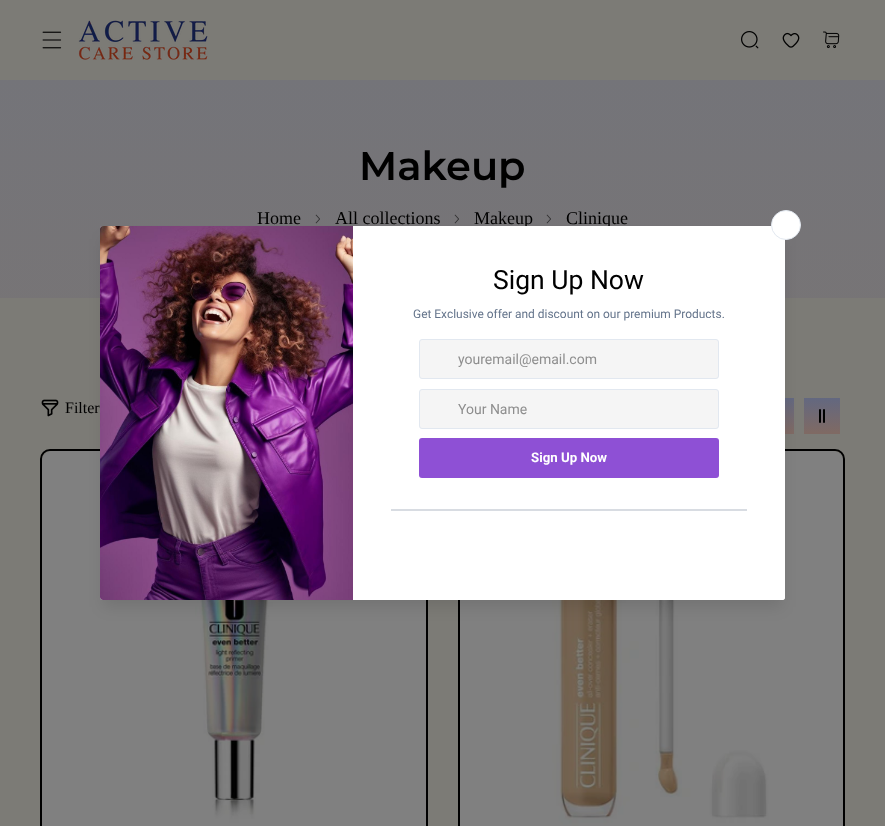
(async () => {
const canvas = document.querySelector("canvas")
canvas.width = 885
canvas.height = 826
const c = canvas.getContext("2d")
c.miterLimit = 4
c.fontKerning = "normal"
function T(s,x,y){c.fillText(s,x,y)}
function R(x,y,w,h){c.fillRect(x,y,w,h)}
function Q(x,y,w,h,r){c.beginPath();c.roundRect(x,y,w,h,r);c.fill()}
async function I(src,x,y,w,h){const img=new Image();img.src=src;await img.decode();c.drawImage(img,x,y,w,h)}
let gradient
c.fillStyle="#7c7b76"
R(0,0,885,826)
await I("1.png",42,31,20,18)
await I("2.png",78,20,130,40)
await I("3.png",741,31,18,18)
await I("4.png",782,32,18,16)
await I("5.png",823,31,17,18)
gradient = c.createLinearGradient(442,0,443,826)
gradient.addColorStop(0,"#73747a")
gradient.addColorStop(.96,"#7d7570")
c.fillStyle = gradient
R(0,80,885,218)
c.font="600 40px Montserrat"
c.fillStyle="#000"
T("Makeup",359,180)
c.font="18px Liberation Serif"
T("Home",257,224)
await I("6.png",315,214,5,10)
T("All collections",335,224)
await I("6.png",454,214,5,10)
T("Makeup",474,224)
await I("6.png",546,214,5,10)
T("Clinique",566,224)
gradient = c.createLinearGradient(776,398,776,434)
gradient.addColorStop(0,"#636880")
gradient.addColorStop(.96,"#7f6a64")
c.fillStyle = gradient
R(785,398,9,36)
gradient = c.createLinearGradient(822,398,822,434)
gradient.addColorStop(0,"#636880")
gradient.addColorStop(.96,"#7f6a64")
c.fillStyle = gradient
R(804,398,36,36)
c.fillStyle="#000"
Q(819,409,2,14,1)
Q(823,409,2,14,1)
c.beginPath()
c.roundRect(41,450,386,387,9)
c.strokeStyle="#000"
c.lineWidth=2
c.stroke()
await I("7.png",42,451,384,375)
c.beginPath()
c.roundRect(459,450,385,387,9)
c.stroke()
await I("8.png",460,451,383,375)
await I("9.png",41,399,18,18)
c.font="16px Liberation Serif"
T("Filter",65,413)
c.fillStyle="#0000001a"
c.filter="blur(7.5px)"
c.beginPath()
c.rect(103,239,679,368)
c.fill()
c.filter="none"
c.fillStyle="#fff"
Q(100,226,685,374,3)
Q(353,226,432,374,3)
c.beginPath()
c.arc(786,225,14.5,0,7)
c.fill()
c.strokeStyle="#e2e8f0"
c.lineWidth=1
c.stroke()
await I("10.png",100,226,253,374)
c.font="26.5px Roboto"
c.fillStyle="#000"
T("Sign Up Now",493,289)
c.font="11.95px Roboto"
c.fillStyle="#64748b"
T("Get Exclusive offer and discount on our premium Products.",413,318)
c.fillStyle="#f5f5f5"
c.beginPath()
c.roundRect(419.5,339.5,299,39,2.5)
c.fill()
c.stroke()
c.font="14px Roboto"
c.fillStyle="#8e8e8e"
T("youremail@email.com",458,364)
c.fillStyle="#f5f5f5"
c.beginPath()
c.roundRect(419.5,389.5,299,39,2.5)
c.fill()
c.stroke()
c.fillStyle="#8e8e8e"
T("Your Name",458,414)
c.fillStyle="#8e50d5"
Q(419,438,300,40,3)
c.font="bold 13.25px Roboto"
c.fillStyle="#fff"
T("Sign Up Now",531,462)
c.fillStyle="#d8dce2"
R(391,509,356,2)
})()
